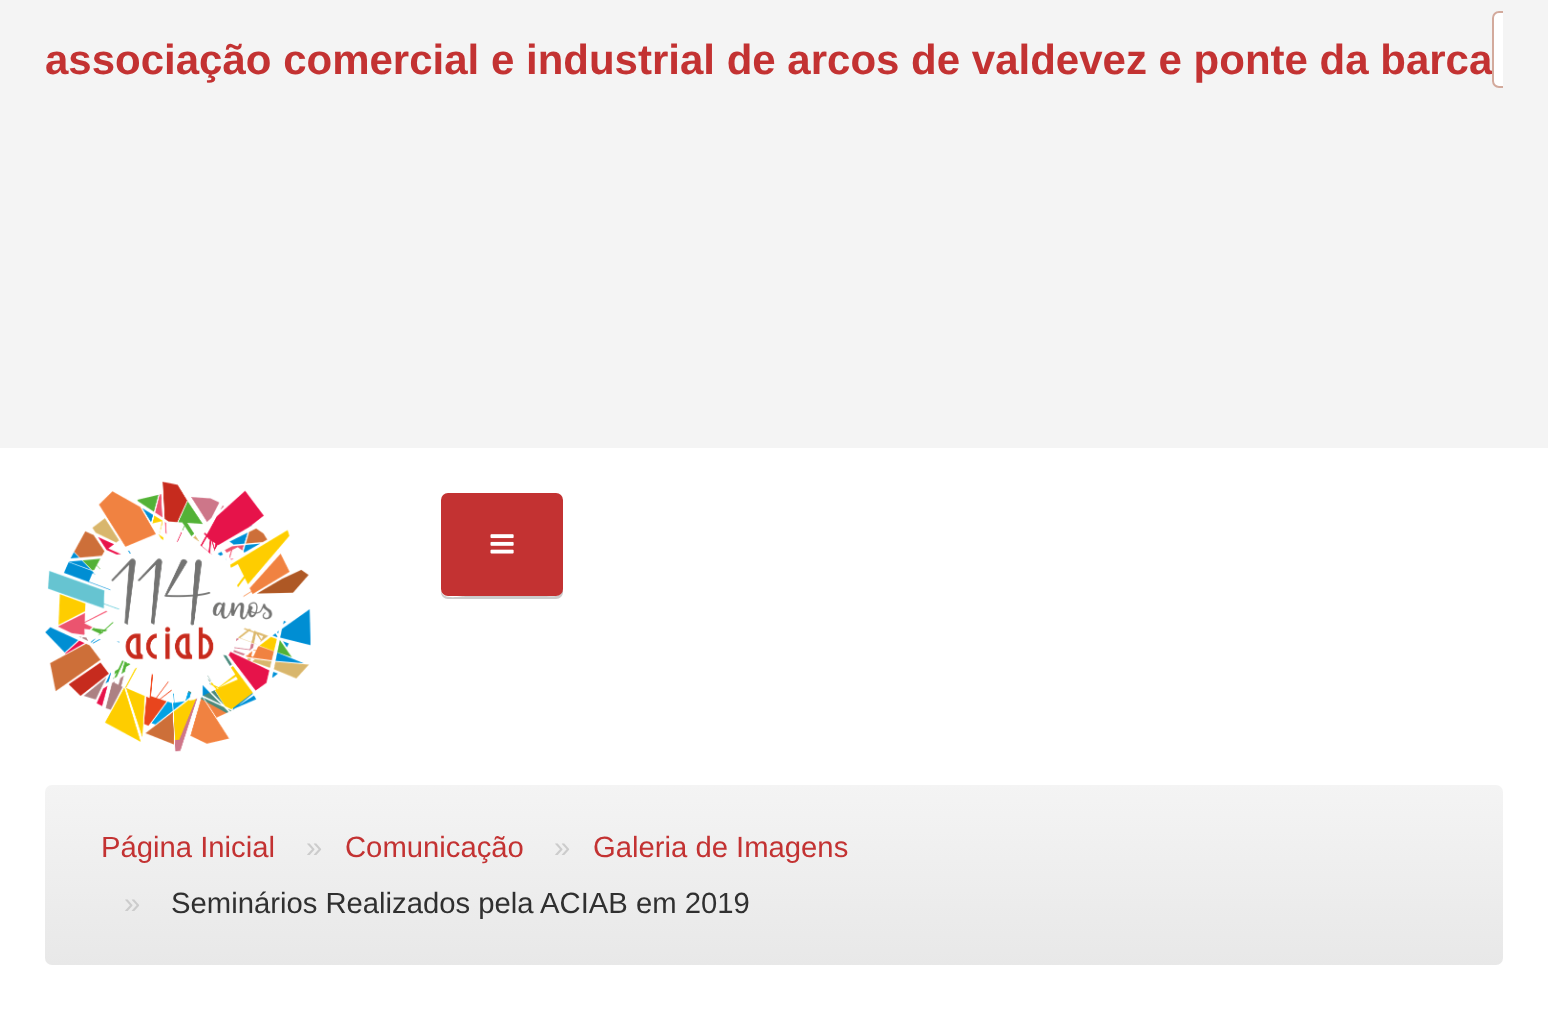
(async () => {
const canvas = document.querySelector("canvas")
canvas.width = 1548
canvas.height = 1010
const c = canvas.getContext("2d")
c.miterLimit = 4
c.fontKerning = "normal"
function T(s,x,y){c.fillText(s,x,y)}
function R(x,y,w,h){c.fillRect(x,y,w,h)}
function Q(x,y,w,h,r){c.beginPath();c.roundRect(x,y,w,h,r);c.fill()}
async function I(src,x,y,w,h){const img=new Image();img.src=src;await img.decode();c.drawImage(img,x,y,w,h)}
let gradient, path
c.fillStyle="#fff"
R(0,0,1548,1010)
c.fillStyle="#f4f4f4"
R(0,0,1548,448)
c.font="bold 42px Liberation Sans"
c.fillStyle="#c33232"
T("associação comercial e industrial de arcos de valdevez e ponte da barca",45,74)
c.fillStyle="#fff"
c.beginPath()
c.roundRect(1492,11,11,77,[7,0,0,7])
c.fill()
c.save()
c.beginPath()
c.rect(1492,0,11,88)
c.clip()
c.beginPath()
c.roundRect(1493,12,29,75,6)
c.strokeStyle="#8d230063"
c.lineWidth=2
c.stroke()
c.restore()
await I("1.png",45,481,266,271)
c.fillStyle="#ccc"
path = new Path2D("M441 590v2c0 4 3 7 7 7h108c4 0 7-3 7-7v-90l-1-3v75c0 26 2 22-24 22h-72c-4 0-25 5-25-6z")
c.fill(path)
c.fillStyle="#c33232"
Q(441,493,122,103,7)
await I("2.png",490,534,24,20)
gradient = c.createLinearGradient(774,785,774,965)
gradient.addColorStop(0,"#f4f4f4")
gradient.addColorStop(1,"#e8e8e8")
c.fillStyle = gradient
Q(45,785,1458,180,7)
c.font="29.25px Liberation Sans"
c.fillStyle="#c33232"
T("Página Inicial",101,857)
c.fillStyle="#ccc"
T("»",306,857)
c.fillStyle="#c33232"
T("Comunicação",345,857)
c.fillStyle="#ccc"
T("»",554,857)
c.fillStyle="#c33232"
T("Galeria de Imagens",593,857)
c.fillStyle="#ccc"
T("»",124,913)
c.fillStyle="#303030"
T("Seminários Realizados pela ACIAB em 2019",171,913)
})()
